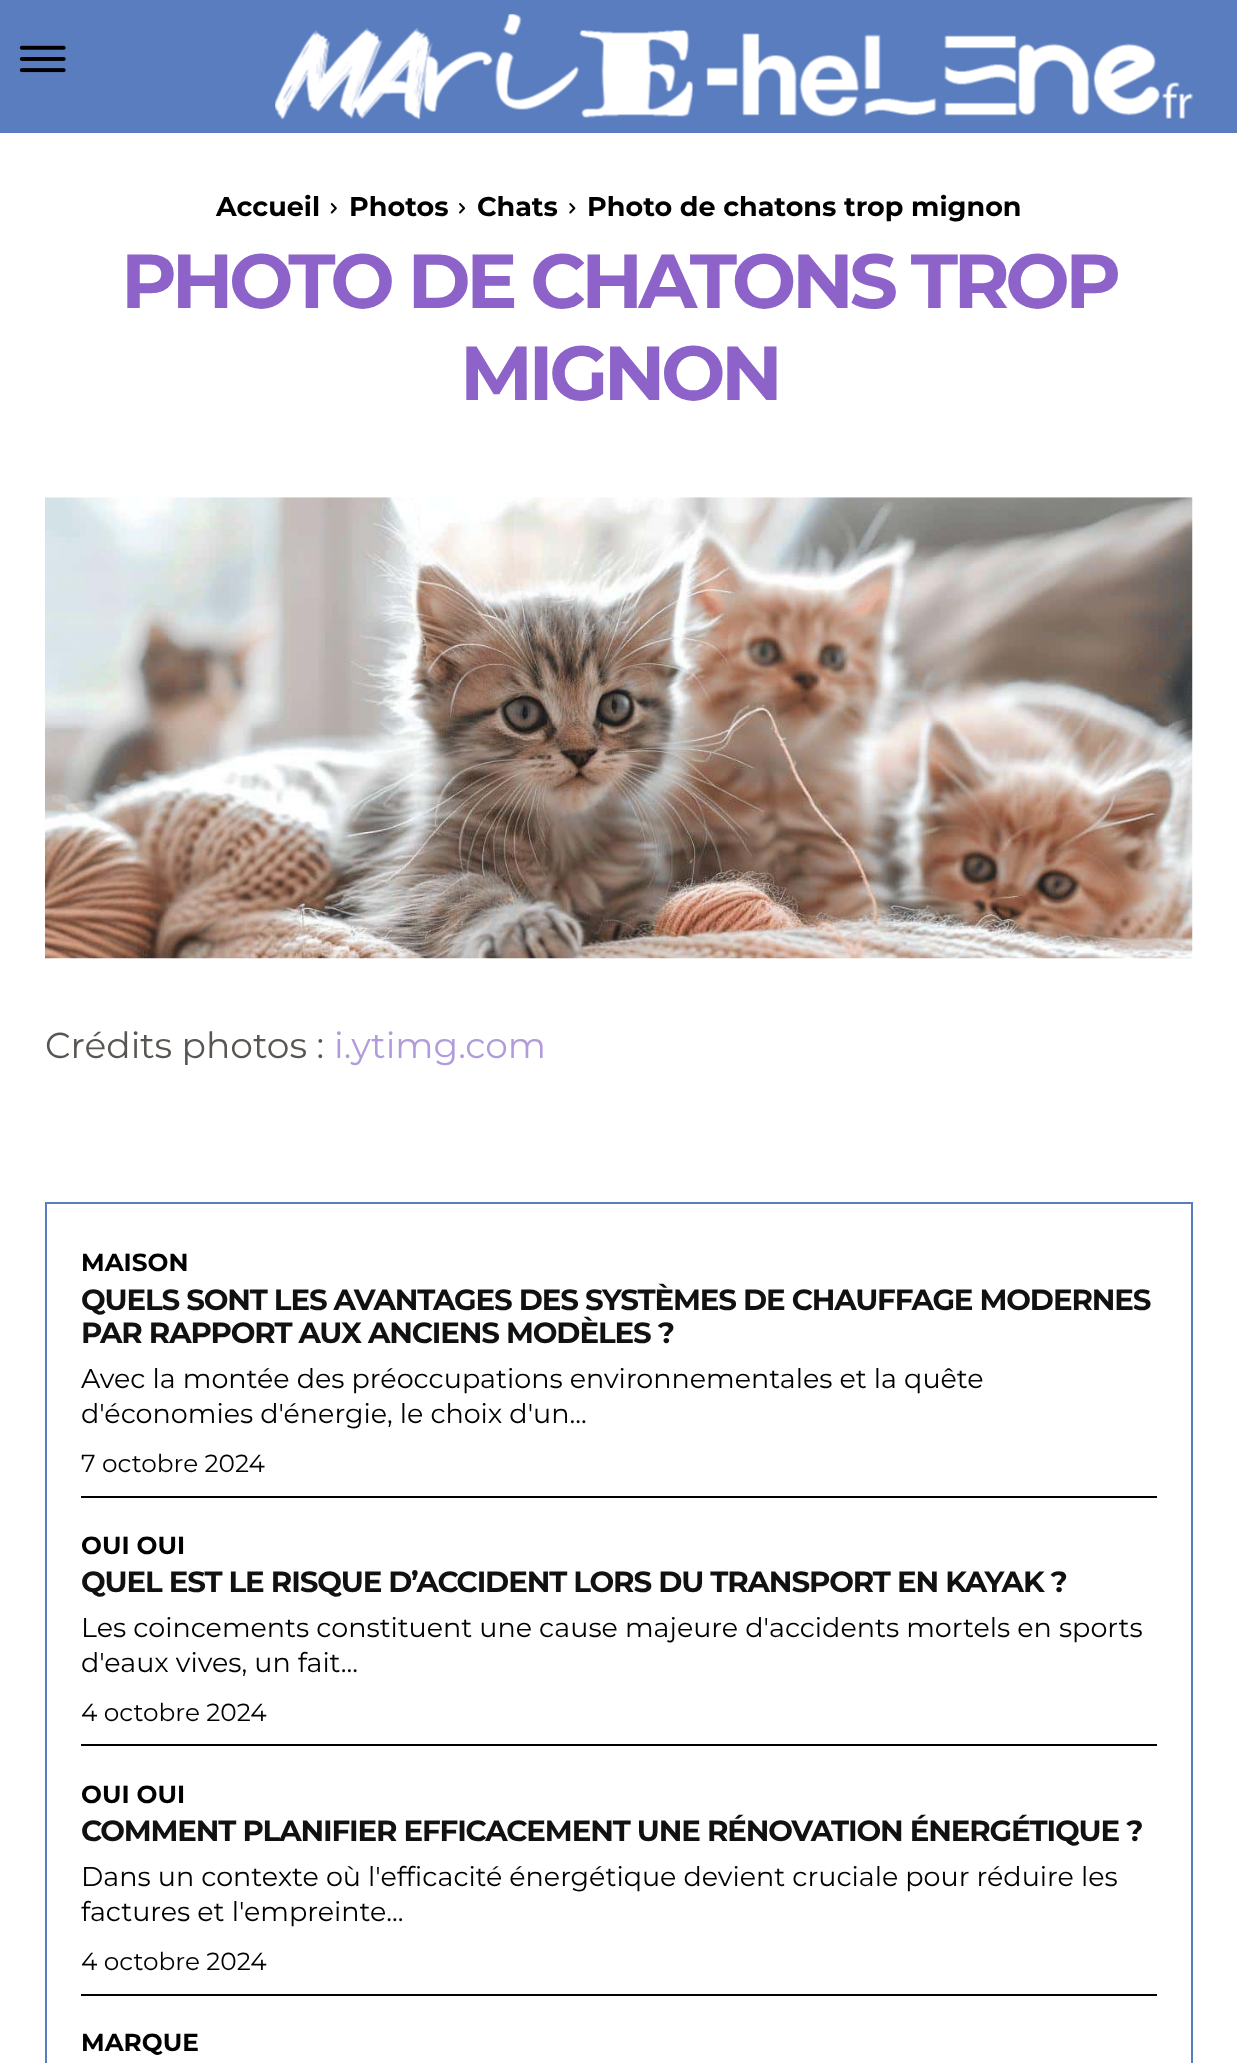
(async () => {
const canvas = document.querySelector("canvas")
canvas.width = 1237
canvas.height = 2063
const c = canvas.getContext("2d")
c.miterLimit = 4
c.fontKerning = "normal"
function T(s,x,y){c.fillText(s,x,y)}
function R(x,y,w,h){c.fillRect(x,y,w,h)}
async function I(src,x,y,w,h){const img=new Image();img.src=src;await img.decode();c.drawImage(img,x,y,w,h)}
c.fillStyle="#fff"
R(0,0,1237,2063)
c.fillStyle="#5a7dc0"
R(0,0,1237,133)
await I("1.png",19,45,47,28)
await I("2.png",275,14,918,106)
c.font="bold 27px Montserrat"
c.fillStyle="#000"
T("Accueil",216,216)
await I("3.png",330,203,7,11)
T("Photos",349,216)
await I("4.png",459,203,7,11)
T("Chats",477,216)
await I("5.png",569,203,7,11)
T("Photo de chatons trop mignon",587,216)
c.letterSpacing="-4.5px"
c.font="bold 76.5px Montserrat"
c.fillStyle="#8d63c9"
T("PHOTO DE CHATONS TROP",121,308)
T("MIGNON",460,400)
await I("6.png",45,497,1148,462)
c.letterSpacing="0px"
c.font="36px Montserrat"
c.fillStyle="#595552"
T("Crédits photos :",45,1058)
c.fillStyle="#b19bdc"
T("i.ytimg.com",334,1058)
c.strokeStyle="#5a7dc0"
c.lineWidth=2
c.strokeRect(46,1203,1146,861)
c.font="bold 24.75px Montserrat"
c.fillStyle="#000"
T("MAISON",81,1271)
c.letterSpacing="-1.12px"
c.font="bold 29.25px Montserrat"
c.fillStyle="#111"
T("QUELS SONT LES AVANTAGES DES SYSTÈMES DE CHAUFFAGE MODERNES",81,1310)
T("PAR RAPPORT AUX ANCIENS MODÈLES ?",81,1343)
c.letterSpacing="0px"
c.font="27px Montserrat"
c.fillStyle="#000"
T("Avec la montée des préoccupations environnementales et la quête",81,1388)
T("d'économies d'énergie, le choix d'un...",81,1423)
c.font="24.75px Montserrat"
T("7 octobre 2024",81,1472)
R(81,1496,1076,2)
c.font="bold 24.75px Montserrat"
T("OUI OUI",81,1554)
c.letterSpacing="-1.12px"
c.font="bold 29.25px Montserrat"
c.fillStyle="#111"
T("QUEL EST LE RISQUE D’ACCIDENT LORS DU TRANSPORT EN KAYAK ?",81,1592)
c.letterSpacing="0px"
c.font="27px Montserrat"
c.fillStyle="#000"
T("Les coincements constituent une cause majeure d'accidents mortels en sports",81,1637)
T("d'eaux vives, un fait...",81,1672)
c.font="24.75px Montserrat"
T("4 octobre 2024",81,1721)
R(81,1744,1076,2)
c.font="bold 24.75px Montserrat"
T("OUI OUI",81,1803)
c.letterSpacing="-1.12px"
c.font="bold 29.25px Montserrat"
c.fillStyle="#111"
T("COMMENT PLANIFIER EFFICACEMENT UNE RÉNOVATION ÉNERGÉTIQUE ?",81,1841)
c.letterSpacing="0px"
c.font="27px Montserrat"
c.fillStyle="#000"
T("Dans un contexte où l'efficacité énergétique devient cruciale pour réduire les",81,1886)
T("factures et l'empreinte...",81,1921)
c.font="24.75px Montserrat"
T("4 octobre 2024",81,1970)
R(81,1994,1076,2)
c.font="bold 24.75px Montserrat"
T("MARQUE",81,2051)
})()
